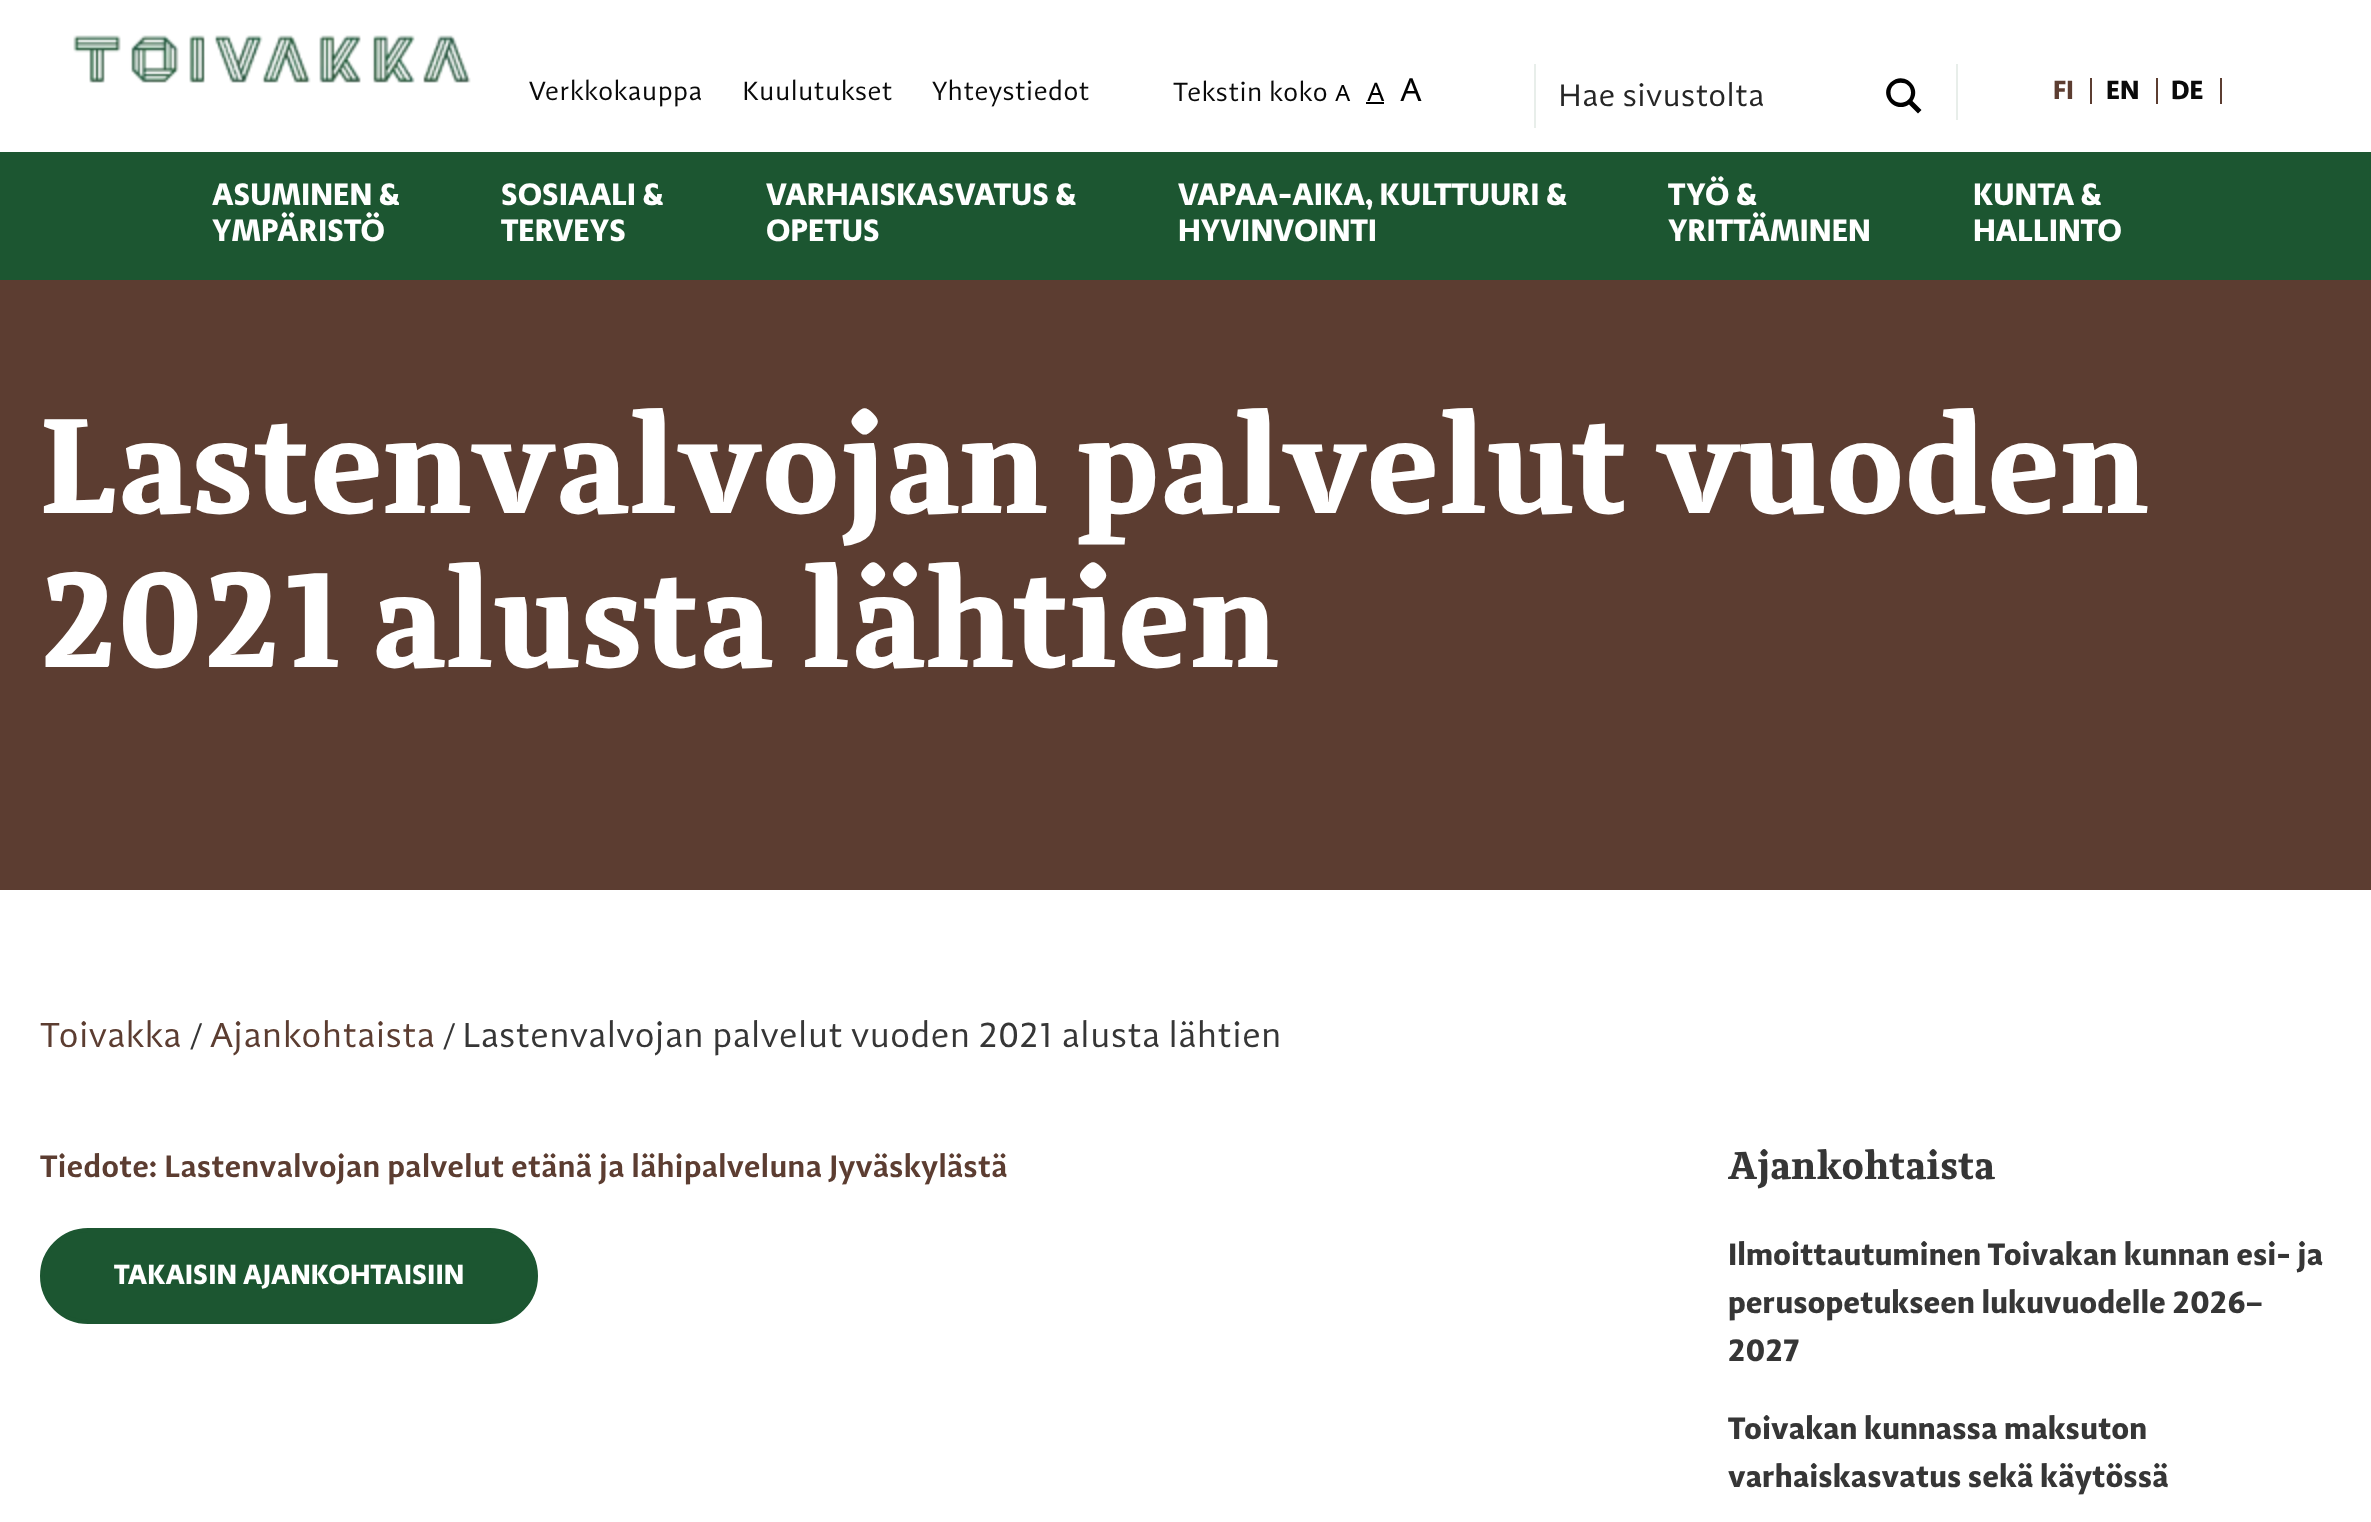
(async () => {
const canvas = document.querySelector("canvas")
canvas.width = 2371
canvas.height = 1522
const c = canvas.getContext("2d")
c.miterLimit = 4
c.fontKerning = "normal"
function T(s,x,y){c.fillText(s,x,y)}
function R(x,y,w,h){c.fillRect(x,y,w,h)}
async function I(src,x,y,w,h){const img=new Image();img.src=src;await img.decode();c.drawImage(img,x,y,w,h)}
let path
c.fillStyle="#fff"
R(0,0,2371,1522)
await I("1.png",73,35,398,48)
c.font="27.25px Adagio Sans"
c.fillStyle="#0a0a0a"
T("Verkkokauppa",529,100)
T("Kuulutukset",742,100)
T("Yhteystiedot",932,100)
T("Tekstin koko",1173,101)
c.font="24px Adagio Sans"
c.fillStyle="#000"
T("A",1335,101)
c.font="27.25px Adagio Sans"
T("A",1367,101)
R(1366,102,18,2)
c.font="34px Adagio Sans"
T("A",1400,101)
c.fillStyle="#e8eeea"
R(1534,64,2,64)
c.font="32px Adagio Sans"
c.fillStyle="#262626"
T("Hae sivustolta",1558,106)
c.fillStyle="#000"
path = new Path2D("M1921.5 110l-9-9c10-14-9-31-22-18.5c-12.5 12.5 4.5 31.5 18.5 22l9 9zm-31-17.5c0-13 20.5-13 20.5 0c0 13.5-20.5 13.5-20.5 0z")
c.fill(path)
c.fillStyle="#e8eeea"
R(1956,64,2,56)
c.font="bold 27.25px Adagio Sans"
c.fillStyle="#5c3d31"
T("FI",2053,99)
R(2090,78,2,26)
c.fillStyle="#0a0a0a"
T("EN",2106,99)
c.fillStyle="#5c3d31"
R(2156,78,2,26)
c.fillStyle="#0a0a0a"
T("DE",2171,99)
c.fillStyle="#5c3d31"
R(2220,78,2,26)
c.fillStyle="#1c5631"
R(0,152,2371,128)
c.font="bold 32px Adagio Sans"
c.fillStyle="#fff"
T("ASUMINEN &",212,205)
T("YMPÄRISTÖ",212,241)
T("SOSIAALI &",501,205)
T("TERVEYS",501,241)
T("VARHAISKASVATUS &",766,205)
T("OPETUS",766,241)
T("VAPAA-AIKA, KULTTUURI &",1178,205)
T("HYVINVOINTI",1178,241)
T("TYÖ &",1668,205)
T("YRITTÄMINEN",1668,241)
T("KUNTA &",1973,205)
T("HALLINTO",1973,241)
c.fillStyle="#5c3d31"
R(0,280,2371,610)
c.font="bold 140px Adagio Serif"
c.fillStyle="#fff"
T("Lastenvalvojan palvelut vuoden",40,513)
T("2021 alusta lähtien",40,667)
c.font="36px Adagio Sans"
c.fillStyle="#5c3d31"
T("Toivakka",40,1047)
c.font="32px Adagio Sans"
c.fillStyle="#363636"
T("/",189,1047)
c.font="36px Adagio Sans"
c.fillStyle="#5c3d31"
T("Ajankohtaista",210,1047)
c.font="32px Adagio Sans"
c.fillStyle="#363636"
T("/",442,1047)
c.font="36px Adagio Sans"
T("Lastenvalvojan palvelut vuoden 2021 alusta lähtien",462,1047)
c.font="600 32px Adagio Sans"
c.fillStyle="#5c3d31"
T("Tiedote: Lastenvalvojan palvelut etänä ja lähipalveluna Jyväskylästä",40,1177)
c.fillStyle="#1c5631"
c.beginPath()
c.roundRect(42,1230,494,92,46)
c.fill()
c.strokeStyle="#1c5631"
c.lineWidth=4
c.stroke()
c.font="bold 28.75px Adagio Sans"
c.fillStyle="#fff"
T("TAKAISIN AJANKOHTAISIIN",114,1284)
c.font="bold 40px Adagio Serif"
c.fillStyle="#363636"
T("Ajankohtaista",1728,1179)
c.font="bold 32px Adagio Sans"
T("Ilmoittautuminen Toivakan kunnan esi- ja",1728,1265)
T("perusopetukseen lukuvuodelle 2026–",1728,1313)
T("2027",1728,1361)
T("Toivakan kunnassa maksuton",1728,1439)
T("varhaiskasvatus sekä käytössä",1728,1487)
})()
